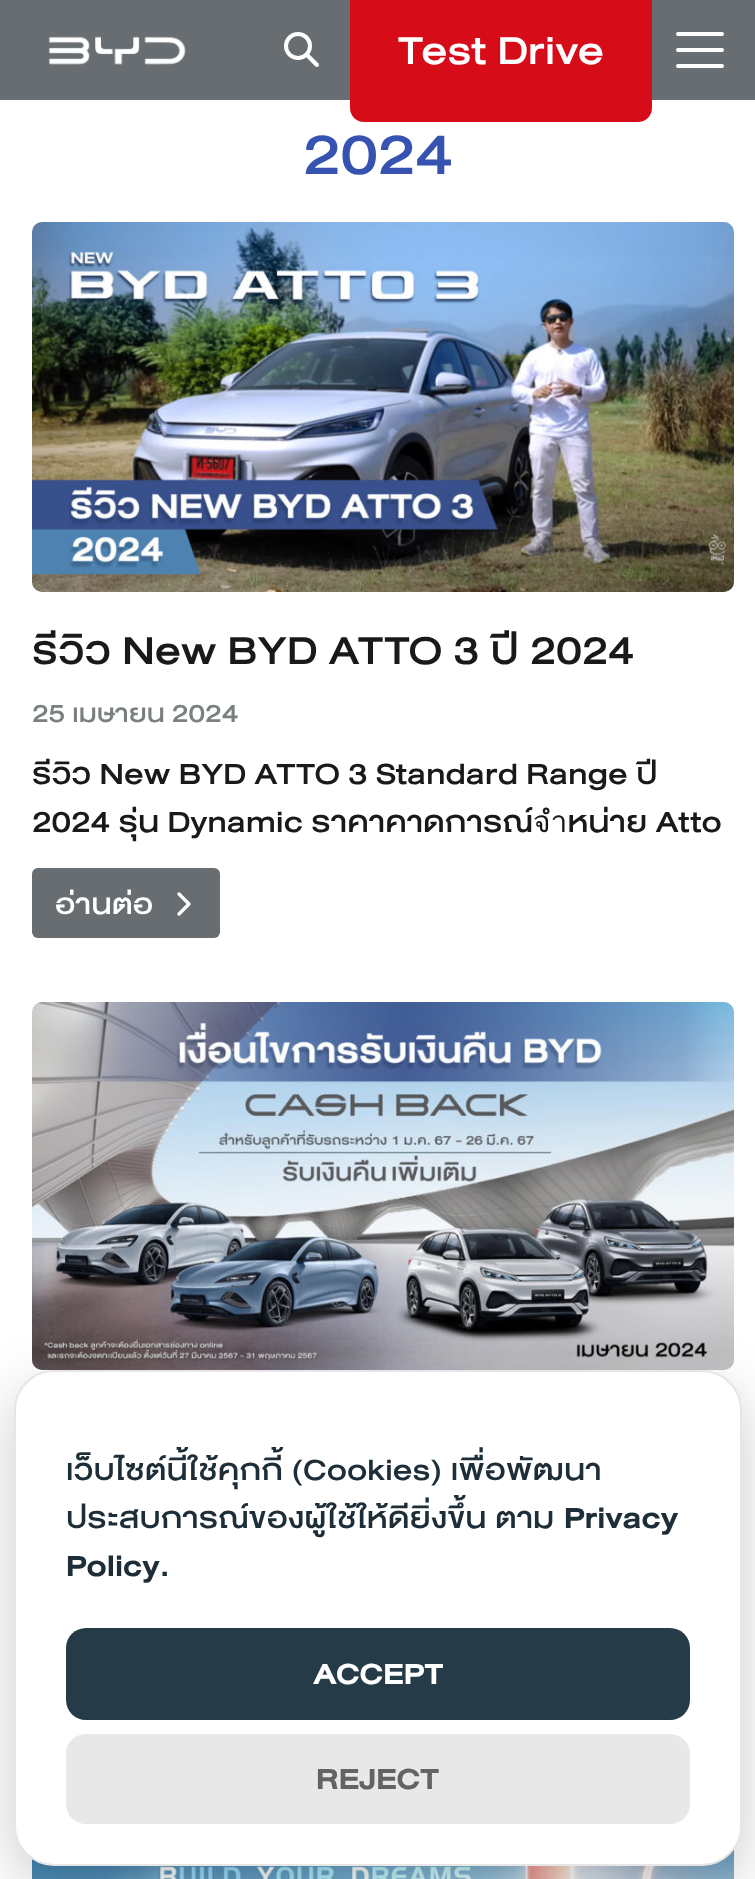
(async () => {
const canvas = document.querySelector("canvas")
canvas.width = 755
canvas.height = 1879
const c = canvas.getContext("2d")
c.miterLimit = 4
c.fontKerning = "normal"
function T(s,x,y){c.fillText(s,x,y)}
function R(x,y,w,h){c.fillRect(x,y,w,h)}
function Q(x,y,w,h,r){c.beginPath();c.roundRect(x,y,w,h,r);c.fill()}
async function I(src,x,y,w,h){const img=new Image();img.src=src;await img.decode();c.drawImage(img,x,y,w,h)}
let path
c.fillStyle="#fff"
R(0,0,755,1879)
c.fillStyle="#686d71"
R(0,0,755,100)
await I("1.png",48,36,138,29)
c.fillStyle="#fff"
path = new Path2D("M306.5 54.5c1-.5 2-.5 3 0l9 9c.5 1 .5 2 0 3c-1 .5-2 .5-3 0l-9-9c-1-1-1-2 0-3z")
c.fill(path)
c.beginPath()
c.arc(298,46,12,0,7)
c.strokeStyle="#fff"
c.lineWidth=4
c.stroke()
c.fillStyle="#d70c19"
Q(350,-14,302,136,14)
c.font="500 40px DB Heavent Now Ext"
c.fillStyle="#fff"
T("Test Drive",398,64)
Q(676,48,48,4,2)
Q(676,32,48,4,2)
Q(676,64,48,4,2)
c.font="500 57.5px DB Heavent Now Ext"
c.fillStyle="#3753b1"
T("2024",303,174)
c.fillStyle="#f5f5f7"
Q(32,222,702,370,10)
await I("2.png",32,222,702,370)
c.font="500 40px DB Heavent Now Ext"
c.fillStyle="#181919"
T("รีวิว New BYD ATTO 3 ปี 2024",32,664)
c.font="500 25.5px DB Heavent Now Ext"
c.fillStyle="#7a8080"
T("25 เมษายน 2024",32,722)
c.save()
c.beginPath()
c.rect(32,748,702,96)
c.clip()
c.font="500 30px DB Heavent Now Ext"
c.fillStyle="#181919"
T("รีวิว New BYD ATTO 3 Standard Range ปี",32,784)
c.restore()
c.font="500 30px DB Heavent Now Ext"
c.fillStyle="#181919"
T("2024 รุ่น Dynamic ราคาคาดการณ์จำหน่าย Atto",32,832)
c.fillStyle="#686d71"
Q(32,868,188,70,6)
c.font="500 29px DB Heavent Now Ext"
c.fillStyle="#fff"
T("อ่านต่อ",55,914)
path = new Path2D("M179 914l10-10l-10-10")
c.lineWidth=3.3
c.lineCap="round"
c.lineJoin="round"
c.stroke(path)
c.fillStyle="#f5f5f7"
Q(32,1002,702,368,10)
await I("3.png",32,1002,702,368)
await I("4.png",32,1850,702,29)
c.fillStyle="#02020333"
c.filter="blur(30px)"
c.beginPath()
c.roundRect(14,1390,728,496,40)
c.fill()
c.filter="none"
c.fillStyle="#fff"
c.beginPath()
c.roundRect(15,1371,726,494,39)
c.fill()
c.strokeStyle="#e6e6e6"
c.lineWidth=2
c.lineJoin="miter"
c.stroke()
c.font="500 30px DB Heavent Now Ext"
c.fillStyle="#1d2e38"
T("เว็บไซต์นี้ใช้คุกกี้ (Cookies) เพื่อพัฒนา",66,1480)
T("ประสบการณ์ของผู้ใช้ให้ดียิ่งขึ้น ตาม",66,1528)
c.font="bold 30px DB Heavent Now Ext"
T("Privacy",564,1528)
T("Policy.",66,1576)
c.fillStyle="#253b48"
Q(66,1628,624,92,20)
c.fillStyle="#fff"
T("ACCEPT",313,1684)
c.fillStyle="#e8e8e8"
Q(66,1734,624,90,20)
c.fillStyle="#636363"
T("REJECT",316,1789)
})()
